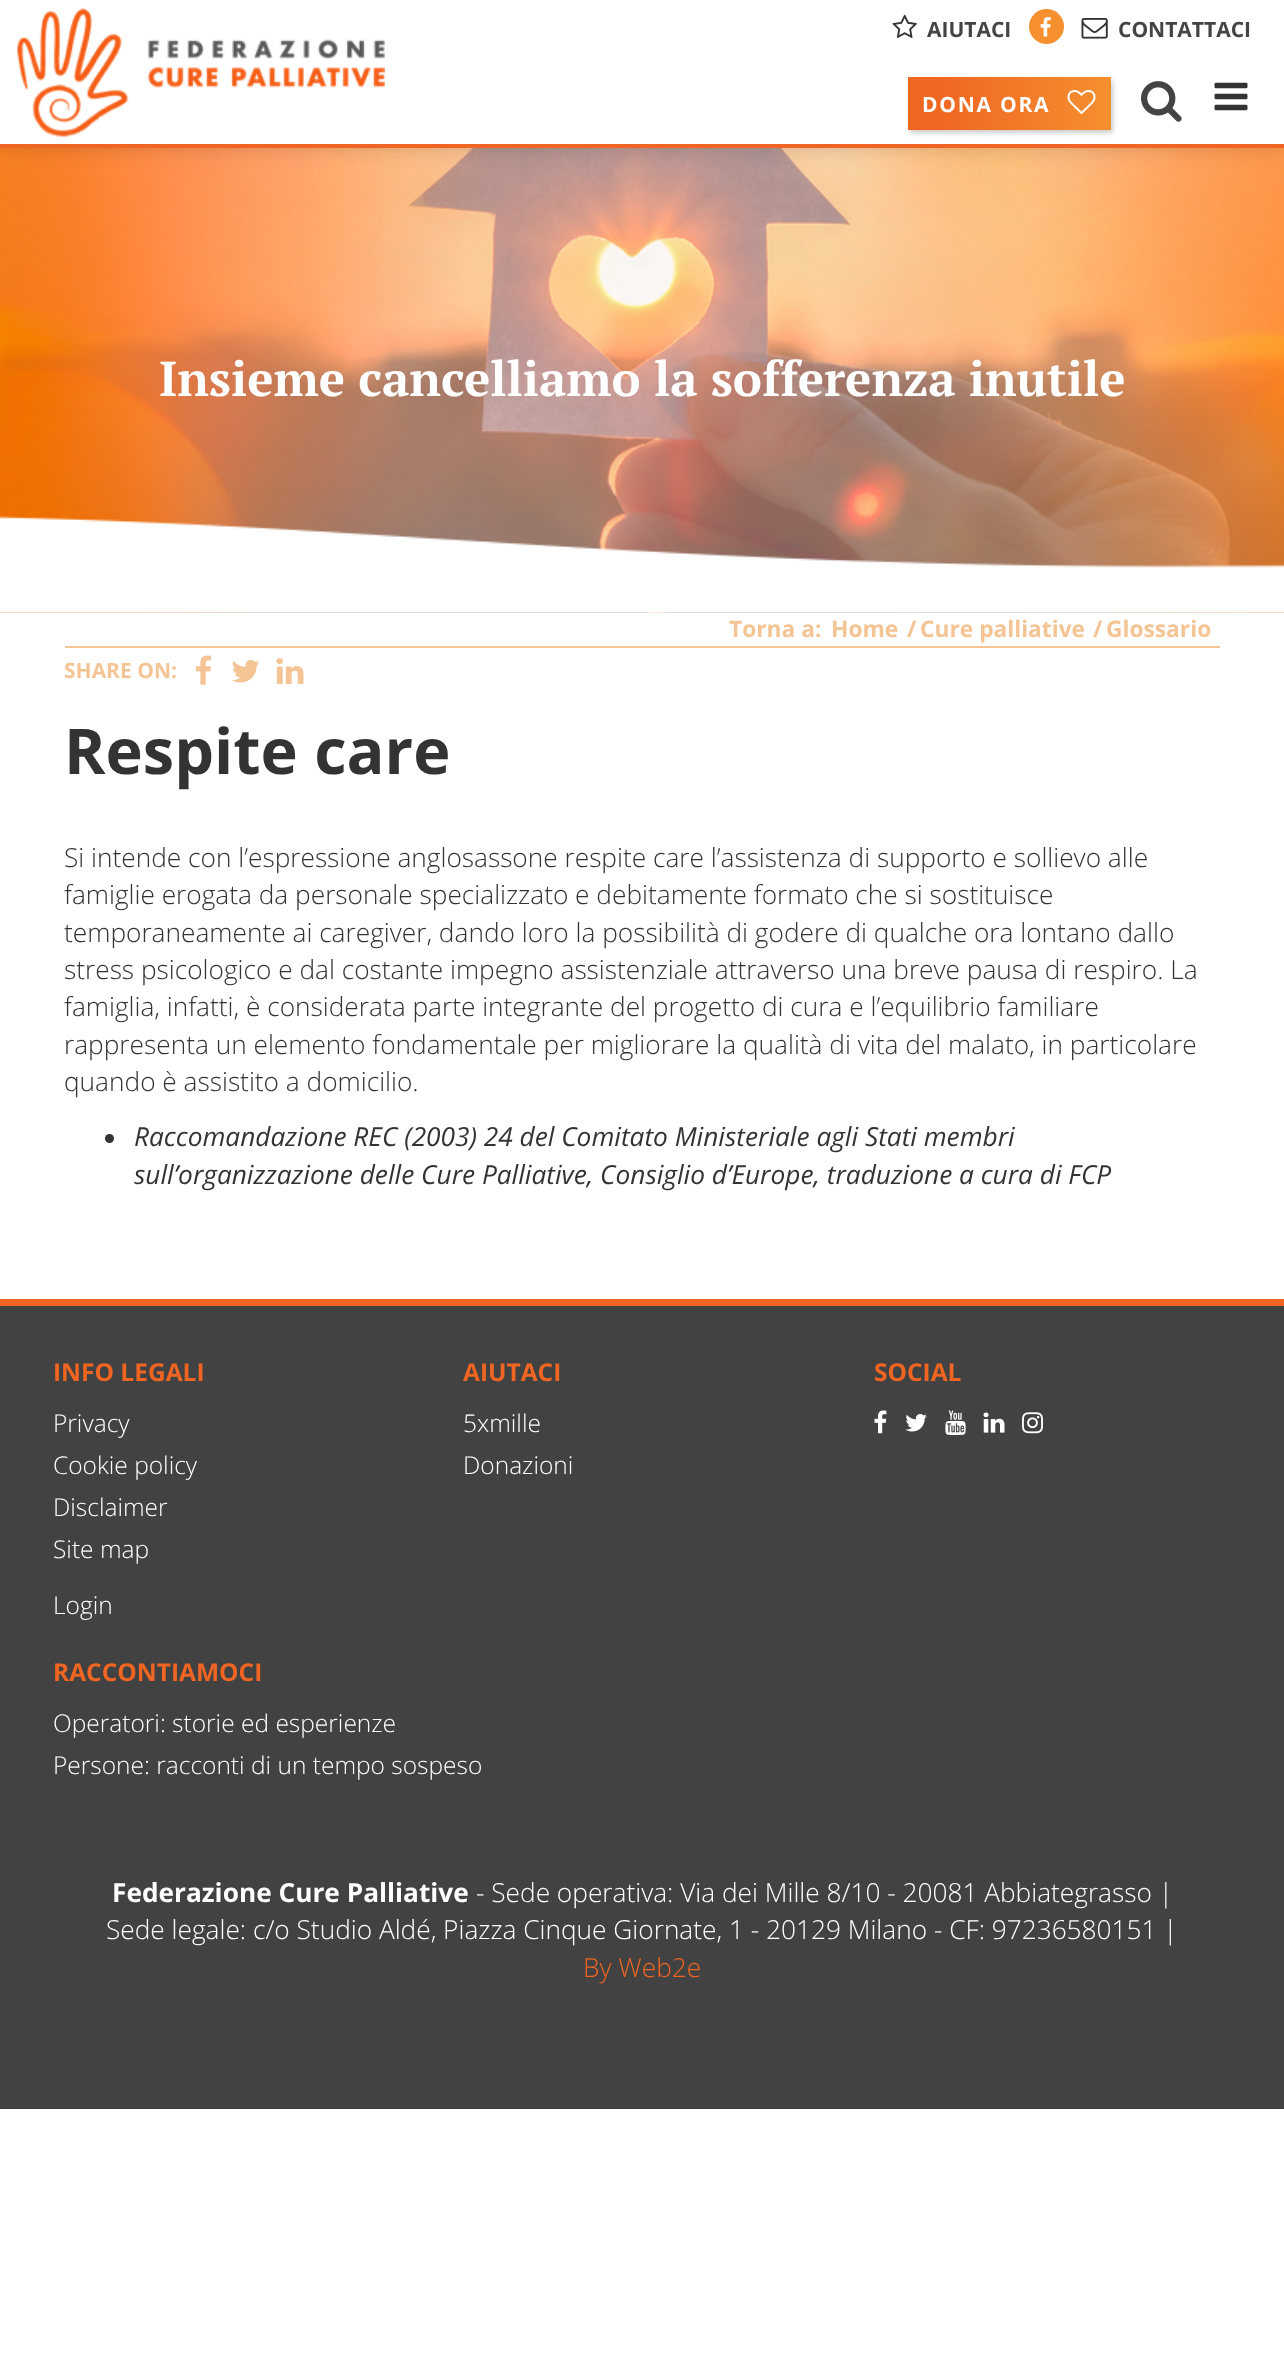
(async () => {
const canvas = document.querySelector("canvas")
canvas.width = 1284
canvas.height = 2366
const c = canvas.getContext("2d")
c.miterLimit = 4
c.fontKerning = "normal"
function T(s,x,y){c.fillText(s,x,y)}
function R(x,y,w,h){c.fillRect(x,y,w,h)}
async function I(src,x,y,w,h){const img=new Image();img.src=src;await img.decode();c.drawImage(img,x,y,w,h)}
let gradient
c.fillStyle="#fff"
R(0,0,1284,2366)
await I("8.png",0,148,1284,465)
c.fillStyle="#00000033"
c.filter="blur(10.5px)"
c.beginPath()
c.rect(2,2,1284,143)
c.fill()
c.filter="none"
c.fillStyle="#fff"
R(0,0,1284,144)
await I("1.png",17,8,368,129)
await I("2.png",892,14,25,24)
c.font="bold 21px Open Sans"
c.fillStyle="#444"
T("AIUTACI",927,37)
c.fillStyle="#f58f2f"
c.beginPath()
c.arc(1046.5,26.5,17.5,0,7)
c.fill()
await I("3.png",1040,17,11,20)
await I("4.png",1081,18,27,21)
c.fillStyle="#444"
T("CONTATTACI",1118,37)
c.fillStyle="#00000033"
c.filter="blur(2.5px)"
c.beginPath()
c.rect(910,81,203,52)
c.fill()
c.filter="none"
gradient = c.createLinearGradient(908,103,1111,103)
gradient.addColorStop(0,"#f06722")
gradient.addColorStop(.16,"#f06722")
gradient.addColorStop(1,"#f58f2f")
c.fillStyle = gradient
R(908,77,203,53)
c.letterSpacing="1.75px"
c.fillStyle="#fff"
T("DONA ORA",922,112)
await I("5.png",1067,90,29,24)
await I("6.png",1141,81,41,41)
await I("7.png",1214,82,34,29)
c.fillStyle="#f06523"
R(0,144,1284,4)
c.letterSpacing="0px"
c.font="bold 49px PT Serif"
c.fillStyle="#fff"
T("Insieme cancelliamo la sofferenza inutile",159,396)
await I("9.png",0,516,1284,97)
c.fillStyle="#f5c495"
R(65,646,1155,2)
c.font="bold 22.75px Open Sans"
T("Torna a:",729,637)
T("Home",831,637)
T("/",907,637)
T("Cure palliative",920,637)
T("/",1093,637)
T("Glossario",1106,637)
c.font="bold 21px Open Sans"
T("SHARE ON:",64,678)
await I("10.png",195,655,17,30)
await I("11.png",232,660,28,23)
await I("12.png",276,658,28,26)
c.font="bold 63px Open Sans"
c.fillStyle="#333"
T("Respite care",64,774)
c.font="300 26.25px Open Sans"
T("Si intende con l’espressione anglosassone respite care l’assistenza di supporto e sollievo alle",64,867)
T("famiglie erogata da personale specializzato e debitamente formato che si sostituisce",64,904)
T("temporaneamente ai caregiver, dando loro la possibilità di godere di qualche ora lontano dallo",64,942)
T("stress psicologico e dal costante impegno assistenziale attraverso una breve pausa di respiro. La",64,979)
T("famiglia, infatti, è considerata parte integrante del progetto di cura e l’equilibrio familiare",64,1016)
T("rappresenta un elemento fondamentale per migliorare la qualità di vita del malato, in particolare",64,1054)
T("quando è assistito a domicilio.",64,1091)
c.beginPath()
c.arc(109.5,1138.5,4.5,0,7)
c.fill()
c.font="italic 26.25px Open Sans"
T("Raccomandazione REC (2003) 24 del Comitato Ministeriale agli Stati membri",134,1146)
T("sull’organizzazione delle Cure Palliative, Consiglio d’Europe, traduzione a cura di FCP",134,1184)
c.fillStyle="#424242"
R(0,1306,1284,803)
c.fillStyle="#f06522"
R(0,1299,1284,7)
c.font="bold 24.5px Open Sans"
T("INFO LEGALI",53,1381)
c.font="300 24.5px Open Sans"
c.fillStyle="#fff"
T("Privacy",53,1432)
T("Cookie policy",53,1474)
T("Disclaimer",53,1516)
T("Site map",53,1558)
T("Login",53,1614)
c.font="bold 24.5px Open Sans"
c.fillStyle="#f06522"
T("AIUTACI",463,1381)
c.font="300 24.5px Open Sans"
c.fillStyle="#fff"
T("5xmille",463,1432)
T("Donazioni",463,1474)
c.font="bold 24.5px Open Sans"
c.fillStyle="#f06522"
T("SOCIAL",874,1381)
await I("13.png",874,1410,13,24)
await I("14.png",905,1414,22,18)
await I("15.png",945,1410,21,25)
await I("16.png",983,1412,22,21)
await I("17.png",1022,1412,21,22)
T("RACCONTIAMOCI",53,1681)
c.font="300 24.5px Open Sans"
c.fillStyle="#fff"
T("Operatori: storie ed esperienze",53,1732)
T("Persone: racconti di un tempo sospeso",53,1774)
c.font="bold 26.25px Open Sans"
T("Federazione Cure Palliative",112,1902)
c.font="300 26.25px Open Sans"
T("- Sede operativa: Via dei Mille 8/10 - 20081 Abbiategrasso |",476,1902)
T("Sede legale: c/o Studio Aldé, Piazza Cinque Giornate, 1 - 20129 Milano - CF: 97236580151 |",106,1939)
c.fillStyle="#f06522"
T("By Web2e",583,1977)
})()
